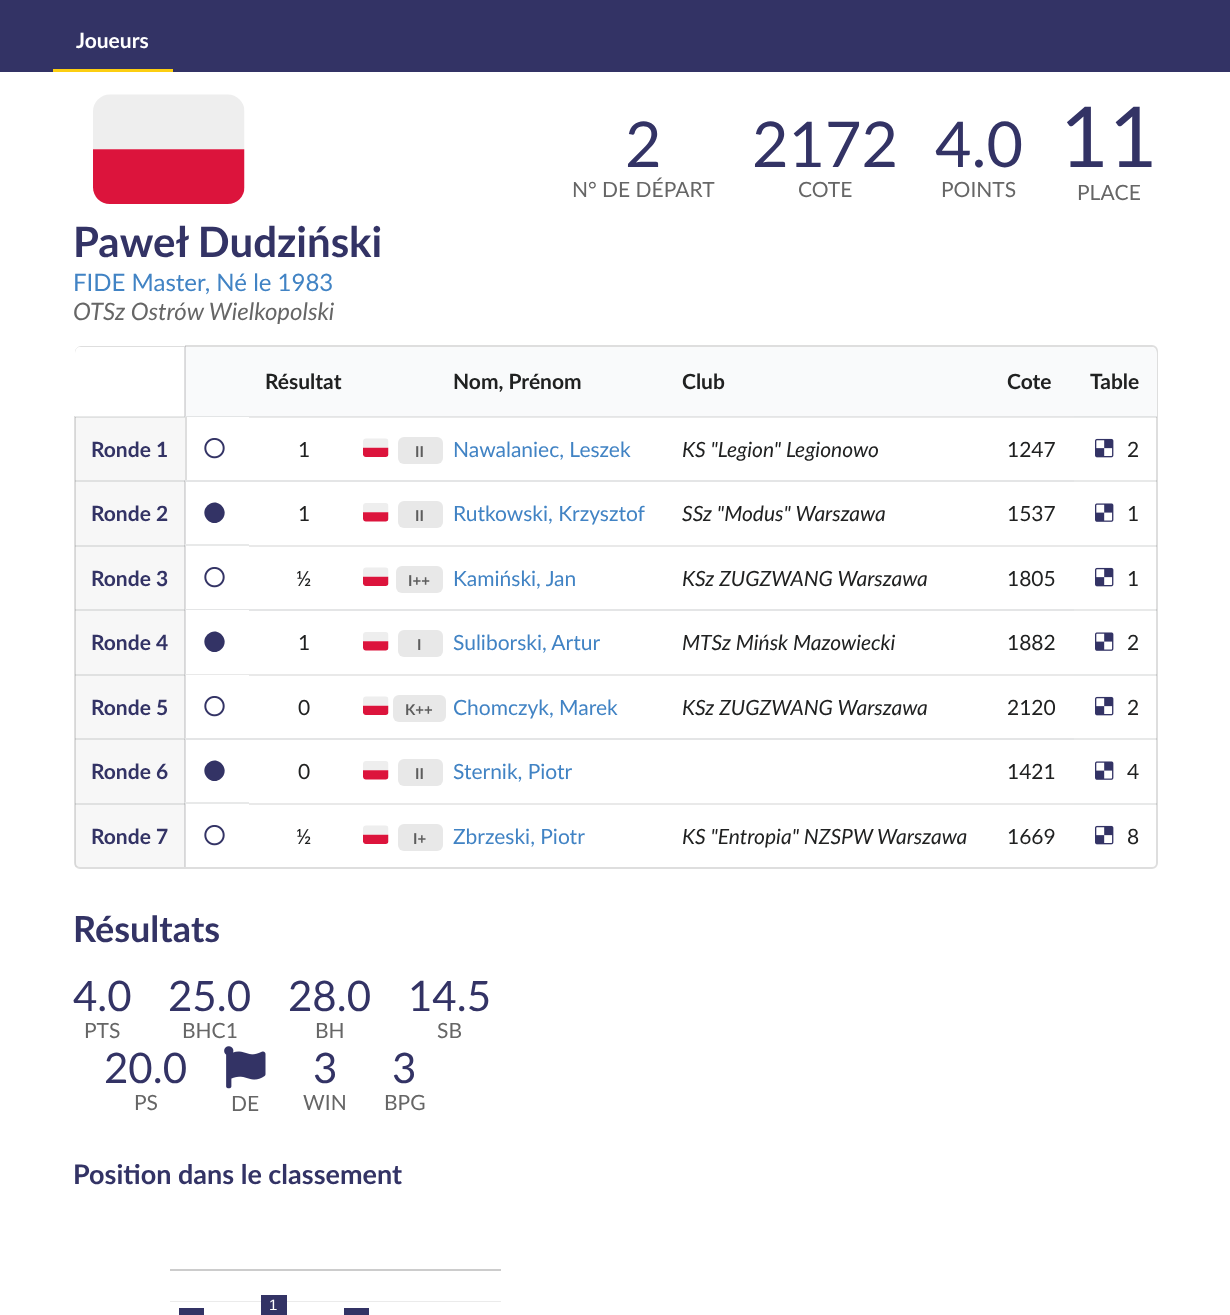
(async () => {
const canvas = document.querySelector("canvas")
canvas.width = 1230
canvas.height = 1315
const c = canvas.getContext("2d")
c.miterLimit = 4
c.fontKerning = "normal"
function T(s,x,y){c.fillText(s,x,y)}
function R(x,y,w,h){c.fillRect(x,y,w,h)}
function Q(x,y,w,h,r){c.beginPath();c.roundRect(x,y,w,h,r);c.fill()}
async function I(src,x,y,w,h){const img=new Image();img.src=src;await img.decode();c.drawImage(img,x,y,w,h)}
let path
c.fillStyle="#fff"
R(0,0,1230,1315)
c.fillStyle="#e9e9e9"
R(249,417,825,1)
c.fillStyle="#333365"
R(0,0,1230,72)
c.fillStyle="#fcce11"
R(53,69,120,3)
c.font="bold 21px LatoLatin"
c.fillStyle="#fff"
T("Joueurs",76,48)
c.font="63px LatoLatin"
c.fillStyle="#333365"
T("2",625,167)
c.font="21px LatoLatin"
c.fillStyle="#666"
T("N° DE DÉPART",572,197)
c.font="63px LatoLatin"
c.fillStyle="#333365"
T("2172",752,167)
c.font="21px LatoLatin"
c.fillStyle="#666"
T("COTE",798,197)
c.font="63px LatoLatin"
c.fillStyle="#333365"
T("4.0",935,167)
c.font="21px LatoLatin"
c.fillStyle="#666"
T("POINTS",941,197)
c.font="84px LatoLatin"
c.fillStyle="#333365"
T("11",1060,167)
c.font="21px LatoLatin"
c.fillStyle="#666"
T("PLACE",1077,200)
await I("1.png",93,94,152,110)
c.font="bold 42px LatoLatin"
c.fillStyle="#333365"
T("Paweł Dudziński",73,257)
c.font="24px LatoLatin"
c.fillStyle="#4183c4"
T("FIDE Master, Né le 1983",73,291)
c.font="italic 24px LatoLatin"
c.fillStyle="#666"
T("OTSz Ostrów Wielkopolski",73,320)
c.beginPath()
c.roundRect(75,346,1082,522,5)
c.strokeStyle="#dedede"
c.lineWidth=2
c.stroke()
c.fillStyle="#fff"
path = new Path2D("M79 341c-4 0-8 4-8 8v67h4v-64c0-3 3-6 6-6h103v70h1v-75z")
c.fill(path)
c.beginPath()
c.roundRect(75,347,110,70,[6,0,0,0])
c.fill()
c.fillStyle="#2224261a"
R(75,416,110,2)
c.fillStyle="#f9fafb"
R(185,347,64,70)
c.fillStyle="#e3e5e6"
path = new Path2D("M249 417h-65l2-1h63z")
c.fill(path)
c.fillStyle="#22242626"
path = new Path2D("M184 417v-71h2v70z")
c.fill(path)
c.fillStyle="#f9fafb"
R(249,347,825,69)
c.fillStyle="#e4e5e6"
R(249,416,825,1)
c.font="bold 21px LatoLatin"
c.fillStyle="#202121"
T("Résultat",265,389)
T("Nom, Prénom",453,389)
T("Club",682,389)
T("Cote",1007,389)
c.fillStyle="#f9fafb"
c.beginPath()
c.roundRect(1074,347,83,70,[0,6,0,0])
c.fill()
c.fillStyle="#2224261a"
R(1074,416,83,2)
c.fillStyle="#202121"
T("Table",1090,389)
c.fillStyle="#00000008"
R(75,417,110,63)
c.fillStyle="#333365"
T("Ronde 1",91,457)
c.fillStyle="#dedede"
R(185,417,2,63)
await I("2.png",204,438,21,21)
c.font="21px LatoLatin"
c.fillStyle="#202121"
T("1",298,457)
await I("3.png",363,438,26,19)
c.fillStyle="#e8e8e8"
Q(398,437,45,27,6)
c.font="bold 15px LatoLatin"
c.fillStyle="#5d5d5d"
T("II",415,457)
c.font="21px LatoLatin"
c.fillStyle="#4183c4"
T("Nawalaniec, Leszek",453,457)
c.font="italic 21px LatoLatin"
c.fillStyle="#202121"
T("KS \"Legion\" Legionowo",682,457)
c.font="21px LatoLatin"
T("1247",1007,457)
await I("4.png",1095,438,19,20)
T("2",1127,457)
c.fillStyle="#00000008"
R(75,480,110,65)
c.fillStyle="#2224261a"
R(75,480,110,2)
c.font="bold 21px LatoLatin"
c.fillStyle="#333365"
T("Ronde 2",91,521)
c.fillStyle="#e4e5e6"
path = new Path2D("M184 480h65v2h-63z")
c.fill(path)
c.fillStyle="#22242626"
path = new Path2D("M184 544v-64l2 2v62z")
c.fill(path)
c.fillStyle="#333365"
path = new Path2D("M207.5 505.5c9.5-9.5 23.5 5 14 14.5c-9.5 9.5-23.5-5-14-14.5z")
c.fill(path)
c.fillStyle="#e4e5e6"
R(249,480,825,2)
c.font="21px LatoLatin"
c.fillStyle="#202121"
T("1",298,521)
await I("5.png",363,503,26,19)
c.fillStyle="#e8e8e8"
Q(398,501,45,27,6)
c.font="bold 15px LatoLatin"
c.fillStyle="#5d5d5d"
T("II",415,521)
c.font="21px LatoLatin"
c.fillStyle="#4183c4"
T("Rutkowski, Krzysztof",453,521)
c.font="italic 21px LatoLatin"
c.fillStyle="#202121"
T("SSz \"Modus\" Warszawa",682,521)
c.font="21px LatoLatin"
T("1537",1007,521)
c.fillStyle="#2224261a"
R(1074,480,83,2)
await I("6.png",1095,503,19,19)
c.fillStyle="#202121"
T("1",1127,521)
c.fillStyle="#00000008"
R(75,545,110,64)
c.fillStyle="#2224261a"
R(75,545,110,2)
c.font="bold 21px LatoLatin"
c.fillStyle="#333365"
T("Ronde 3",91,586)
c.fillStyle="#2224261a"
path = new Path2D("M184 544h65v2h-63z")
c.fill(path)
c.fillStyle="#22242626"
path = new Path2D("M184 609v-65l2 2v63z")
c.fill(path)
await I("2.png",204,567,21,21)
c.fillStyle="#e9e9e9"
R(249,545,825,2)
c.font="21px LatoLatin"
c.fillStyle="#202121"
T("½",296,586)
await I("3.png",363,567,26,19)
c.fillStyle="#e8e8e8"
Q(396,566,47,27,6)
c.font="bold 15px LatoLatin"
c.fillStyle="#5d5d5d"
T("I++",408,586)
c.font="21px LatoLatin"
c.fillStyle="#4183c4"
T("Kamiński, Jan",453,586)
c.font="italic 21px LatoLatin"
c.fillStyle="#202121"
T("KSz ZUGZWANG Warszawa",682,586)
c.font="21px LatoLatin"
T("1805",1007,586)
c.fillStyle="#2224261a"
R(1074,545,83,2)
await I("4.png",1095,567,19,20)
c.fillStyle="#202121"
T("1",1127,586)
c.fillStyle="#00000008"
R(75,609,110,65)
c.fillStyle="#2224261a"
R(75,609,110,2)
c.font="bold 21px LatoLatin"
c.fillStyle="#333365"
T("Ronde 4",91,650)
c.fillStyle="#e4e5e6"
path = new Path2D("M184 609h65v1h-63z")
c.fill(path)
c.fillStyle="#22242626"
path = new Path2D("M184 674v-65l2 1v64z")
c.fill(path)
c.fillStyle="#333365"
path = new Path2D("M207.5 634.5c9.5-9.5 23.5 5 14 14.5c-9.5 9.5-23.5-5-14-14.5z")
c.fill(path)
c.fillStyle="#e4e5e6"
R(249,609,825,2)
c.font="21px LatoLatin"
c.fillStyle="#202121"
T("1",298,650)
await I("5.png",363,632,26,19)
c.fillStyle="#e8e8e8"
Q(398,630,45,27,6)
c.font="bold 15px LatoLatin"
c.fillStyle="#5d5d5d"
T("I",417,650)
c.font="21px LatoLatin"
c.fillStyle="#4183c4"
T("Suliborski, Artur",453,650)
c.font="italic 21px LatoLatin"
c.fillStyle="#202121"
T("MTSz Mińsk Mazowiecki",682,650)
c.font="21px LatoLatin"
T("1882",1007,650)
c.fillStyle="#2224261a"
R(1074,609,83,2)
await I("6.png",1095,632,19,19)
c.fillStyle="#202121"
T("2",1127,650)
c.fillStyle="#00000008"
R(75,674,110,64)
c.fillStyle="#2224261a"
R(75,674,110,2)
c.font="bold 21px LatoLatin"
c.fillStyle="#333365"
T("Ronde 5",91,715)
c.fillStyle="#e9e9e9"
path = new Path2D("M184 674h65v1h-63z")
c.fill(path)
c.fillStyle="#22242626"
path = new Path2D("M184 738v-64l2 1v63z")
c.fill(path)
await I("2.png",204,696,21,21)
c.fillStyle="#e9e9e9"
R(249,674,825,2)
c.font="21px LatoLatin"
c.fillStyle="#202121"
T("0",298,715)
await I("3.png",363,696,26,19)
c.fillStyle="#e8e8e8"
Q(393,695,53,27,6)
c.font="bold 15px LatoLatin"
c.fillStyle="#5d5d5d"
T("K++",405,715)
c.font="21px LatoLatin"
c.fillStyle="#4183c4"
T("Chomczyk, Marek",453,715)
c.font="italic 21px LatoLatin"
c.fillStyle="#202121"
T("KSz ZUGZWANG Warszawa",682,715)
c.font="21px LatoLatin"
T("2120",1007,715)
c.fillStyle="#2224261a"
R(1074,674,83,2)
await I("4.png",1095,696,19,20)
c.fillStyle="#202121"
T("2",1127,715)
c.fillStyle="#00000008"
R(75,738,110,65)
c.fillStyle="#2224261a"
R(75,738,110,2)
c.font="bold 21px LatoLatin"
c.fillStyle="#333365"
T("Ronde 6",91,779)
c.fillStyle="#e4e5e6"
path = new Path2D("M184 738h65v2h-63z")
c.fill(path)
c.fillStyle="#22242626"
path = new Path2D("M184 802v-64l2 2v62z")
c.fill(path)
c.fillStyle="#333365"
path = new Path2D("M207.5 763.5c9.5-9.5 23.5 5 14 14.5c-9.5 9.5-23.5-5-14-14.5z")
c.fill(path)
c.fillStyle="#e4e5e6"
R(249,738,825,2)
c.font="21px LatoLatin"
c.fillStyle="#202121"
T("0",298,779)
await I("5.png",363,761,26,19)
c.fillStyle="#e8e8e8"
Q(398,759,45,27,6)
c.font="bold 15px LatoLatin"
c.fillStyle="#5d5d5d"
T("II",415,779)
c.font="21px LatoLatin"
c.fillStyle="#4183c4"
T("Sternik, Piotr",453,779)
c.fillStyle="#202121"
T("1421",1007,779)
c.fillStyle="#2224261a"
R(1074,738,83,2)
await I("6.png",1095,761,19,19)
c.fillStyle="#202121"
T("4",1127,779)
c.fillStyle="#00000008"
R(75,803,110,64)
c.fillStyle="#2224261a"
R(75,803,110,2)
c.font="bold 21px LatoLatin"
c.fillStyle="#333365"
T("Ronde 7",91,844)
c.fillStyle="#2224261a"
path = new Path2D("M184 802h65v2h-63z")
c.fill(path)
c.fillStyle="#22242626"
path = new Path2D("M184 867v-65l2 2v63z")
c.fill(path)
await I("2.png",204,825,21,21)
c.fillStyle="#e9e9e9"
R(249,803,825,2)
c.font="21px LatoLatin"
c.fillStyle="#202121"
T("½",296,844)
await I("3.png",363,825,26,19)
c.fillStyle="#e8e8e8"
Q(398,824,45,27,6)
c.font="bold 15px LatoLatin"
c.fillStyle="#5d5d5d"
T("I+",413,844)
c.font="21px LatoLatin"
c.fillStyle="#4183c4"
T("Zbrzeski, Piotr",453,844)
c.font="italic 21px LatoLatin"
c.fillStyle="#202121"
T("KS \"Entropia\" NZSPW Warszawa",682,844)
c.font="21px LatoLatin"
T("1669",1007,844)
c.fillStyle="#2224261a"
R(1074,803,83,2)
await I("4.png",1095,825,19,20)
c.fillStyle="#202121"
T("8",1127,844)
c.font="bold 36px LatoLatin"
c.fillStyle="#333365"
T("Résultats",73,942)
c.font="42px LatoLatin"
T("4.0",73,1011)
c.font="21px LatoLatin"
c.fillStyle="#666"
T("PTS",84,1038)
c.font="42px LatoLatin"
c.fillStyle="#333365"
T("25.0",168,1011)
c.font="21px LatoLatin"
c.fillStyle="#666"
T("BHC1",182,1038)
c.font="42px LatoLatin"
c.fillStyle="#333365"
T("28.0",288,1011)
c.font="21px LatoLatin"
c.fillStyle="#666"
T("BH",315,1038)
c.font="42px LatoLatin"
c.fillStyle="#333365"
T("14.5",408,1011)
c.font="21px LatoLatin"
c.fillStyle="#666"
T("SB",437,1038)
c.font="42px LatoLatin"
c.fillStyle="#333365"
T("20.0",104,1083)
c.font="21px LatoLatin"
c.fillStyle="#666"
T("PS",134,1110)
await I("7.png",224,1046,42,43)
T("DE",231,1111)
c.font="42px LatoLatin"
c.fillStyle="#333365"
T("3",313,1083)
c.font="21px LatoLatin"
c.fillStyle="#666"
T("WIN",303,1110)
c.font="42px LatoLatin"
c.fillStyle="#333365"
T("3",392,1083)
c.font="21px LatoLatin"
c.fillStyle="#666"
T("BPG",384,1110)
c.font="bold 27px LatoLatin"
c.fillStyle="#333365"
T("Position dans le classement",73,1184)
c.fillStyle="#ebebeb"
R(170,1301,331,1)
c.fillStyle="#333365"
R(261,1295,26,20)
c.font="15px Liberation Sans"
c.fillStyle="#fff"
T("1",269,1310)
c.fillStyle="#ccc"
R(170,1269,331,2)
c.fillStyle="#333365"
R(179,1308,25,7)
R(344,1308,25,7)
})()
